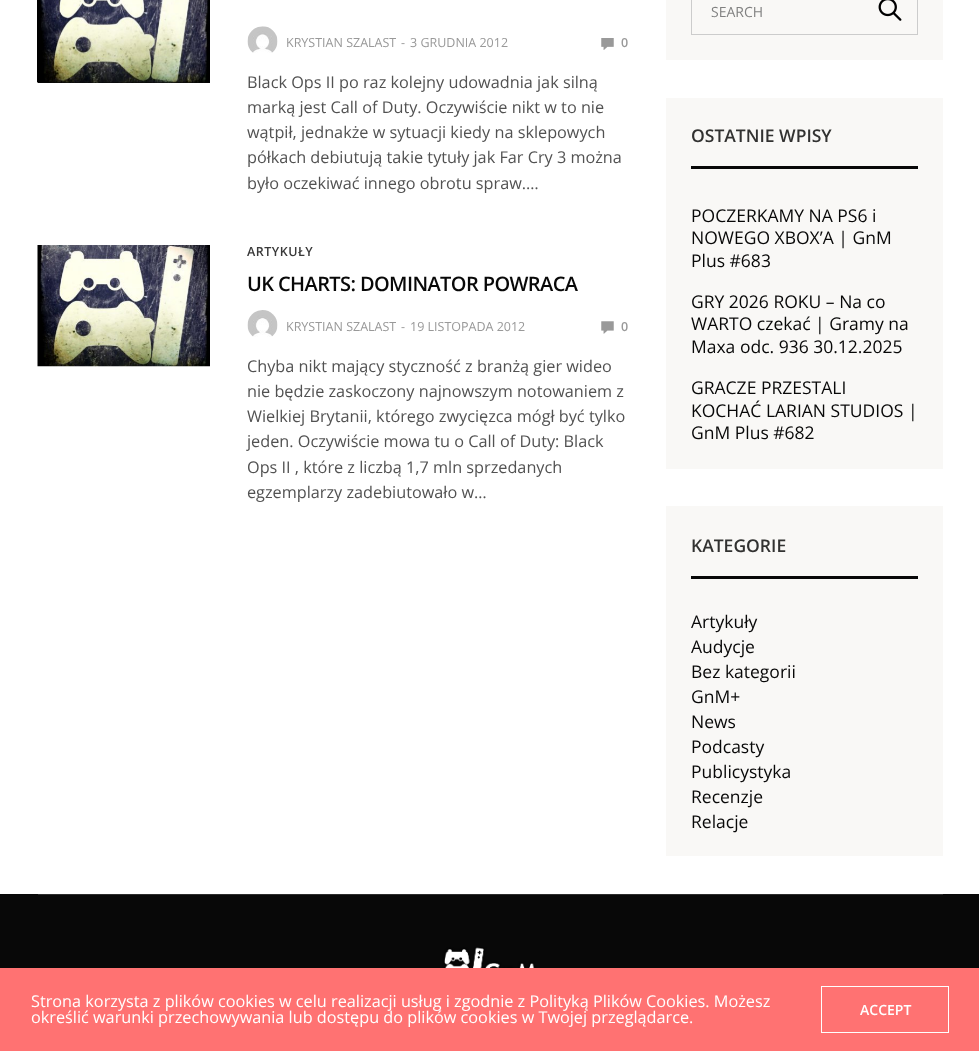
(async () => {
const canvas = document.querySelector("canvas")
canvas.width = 979
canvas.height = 1051
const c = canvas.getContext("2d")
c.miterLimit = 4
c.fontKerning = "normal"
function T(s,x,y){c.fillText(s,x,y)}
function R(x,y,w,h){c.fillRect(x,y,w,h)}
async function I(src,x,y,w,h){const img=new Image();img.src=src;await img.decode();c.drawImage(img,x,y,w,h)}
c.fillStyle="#fff"
R(0,0,979,1051)
c.fillStyle="#080808"
R(38,82,172,1)
await I("1.png",37,0,173,83)
await I("2.png",247,26,31,27)
c.font="12.5px Open Sans"
c.fillStyle="#999"
T("KRYSTIAN SZALAST",286,47)
T("-",401,47)
T("3 GRUDNIA 2012",410,47)
await I("3.png",601,38,13,12)
c.font="600 12.5px Open Sans"
T("0",621,47)
c.font="16.25px Open Sans"
c.fillStyle="#525252"
T("Black Ops II po raz kolejny udowadnia jak silną",247,88)
T("marką jest Call of Duty. Oczywiście nikt w to nie",247,113)
T("wątpił, jednakże w sytuacji kiedy na sklepowych",247,138)
T("półkach debiutują takie tytuły jak Far Cry 3 można",247,163)
T("było oczekiwać innego obrotu spraw.…",247,189)
await I("4.png",37,245,173,122)
c.letterSpacing="0.5px"
c.font="600 12.5px Open Sans"
c.fillStyle="#393939"
T("ARTYKUŁY",247,256)
c.letterSpacing="-0.6px"
c.font="600 20px Open Sans"
c.fillStyle="#080808"
T("UK CHARTS: DOMINATOR POWRACA",247,291)
await I("5.png",247,310,31,27)
c.letterSpacing="0px"
c.font="12.5px Open Sans"
c.fillStyle="#999"
T("KRYSTIAN SZALAST",286,331)
T("-",401,331)
T("19 LISTOPADA 2012",410,331)
await I("6.png",601,321,13,13)
c.font="600 12.5px Open Sans"
T("0",621,331)
c.font="16.25px Open Sans"
c.fillStyle="#525252"
T("Chyba nikt mający styczność z branżą gier wideo",247,372)
T("nie będzie zaskoczony najnowszym notowaniem z",247,397)
T("Wielkiej Brytanii, którego zwycięzca mógł być tylko",247,422)
T("jeden. Oczywiście mowa tu o Call of Duty: Black",247,447)
T("Ops II , które z liczbą 1,7 mln sprzedanych",247,473)
T("egzemplarzy zadebiutowało w…",247,498)
c.fillStyle="#f9f8f6"
R(666,0,277,60)
c.strokeStyle="#ccc"
c.strokeRect(691.5,-.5,226,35)
c.font="14px Open Sans"
c.fillStyle="#808080"
T("SEARCH",711,17)
await I("7.png",878,0,24,21)
c.fillStyle="#f9f8f6"
R(666,98,277,371)
c.fillStyle="#080808"
R(691,166,227,3)
c.font="600 17.5px Open Sans"
c.fillStyle="#323231"
T("OSTATNIE WPISY",691,142)
c.font="17.5px Open Sans"
c.fillStyle="#080808"
T("POCZERKAMY NA PS6 i",691,222)
T("NOWEGO XBOX’A | GnM",691,244)
T("Plus #683",691,267)
T("GRY 2026 ROKU – Na co",691,308)
T("WARTO czekać | Gramy na",691,330)
T("Maxa odc. 936 30.12.2025",691,353)
T("GRACZE PRZESTALI",691,394)
T("KOCHAĆ LARIAN STUDIOS |",691,417)
T("GnM Plus #682",691,439)
c.fillStyle="#f9f8f6"
R(666,506,277,350)
c.fillStyle="#080808"
R(691,576,227,3)
c.font="600 17.5px Open Sans"
c.fillStyle="#323231"
T("KATEGORIE",691,552)
c.font="17.5px Open Sans"
c.fillStyle="#080808"
T("Artykuły",691,628)
T("Audycje",691,653)
T("Bez kategorii",691,678)
T("GnM+",691,703)
T("News",691,728)
T("Podcasty",691,753)
T("Publicystyka",691,778)
T("Recenzje",691,803)
T("Relacje",691,828)
R(0,894,979,74)
c.fillStyle="#2d2d2d"
R(38,894,905,1)
await I("8.png",442,947,95,21)
c.fillStyle="#ff7272"
R(0,968,979,83)
c.font="16.25px Open Sans"
c.fillStyle="#fff"
T("Strona korzysta z plików cookies w celu realizacji usług i zgodnie z Polityką Plików Cookies. Możesz",31,1007)
T("określić warunki przechowywania lub dostępu do plików cookies w Twojej przeglądarce.",31,1023)
c.strokeStyle="#fff"
c.strokeRect(821.5,986.5,127,46)
c.font="600 14px Open Sans"
T("ACCEPT",860,1015)
})()
